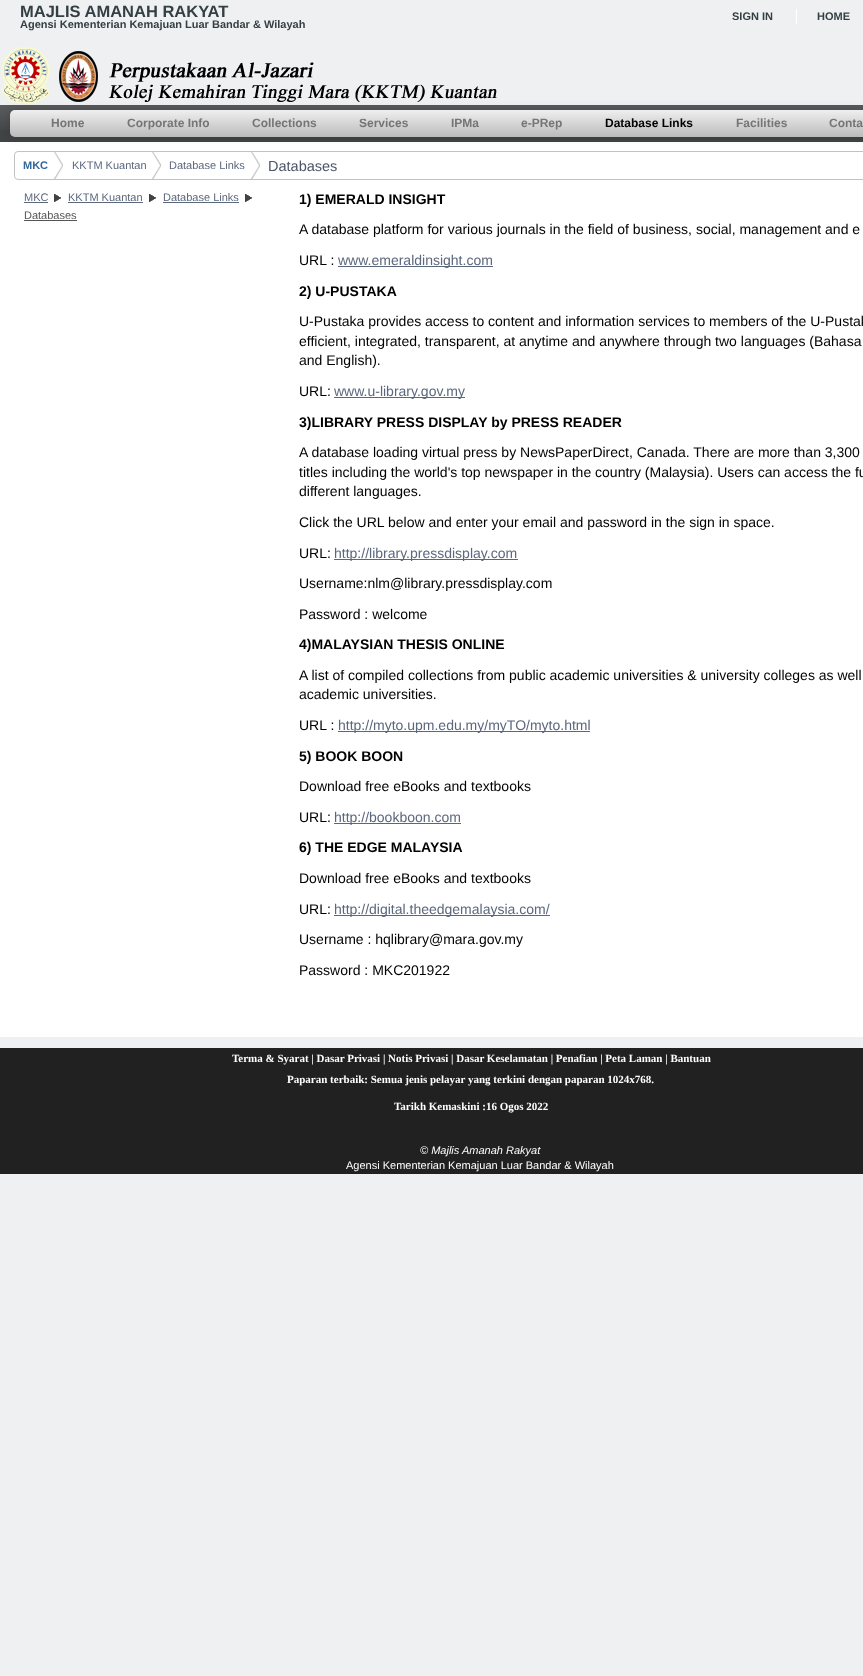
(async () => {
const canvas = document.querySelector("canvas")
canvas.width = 863
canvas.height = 1676
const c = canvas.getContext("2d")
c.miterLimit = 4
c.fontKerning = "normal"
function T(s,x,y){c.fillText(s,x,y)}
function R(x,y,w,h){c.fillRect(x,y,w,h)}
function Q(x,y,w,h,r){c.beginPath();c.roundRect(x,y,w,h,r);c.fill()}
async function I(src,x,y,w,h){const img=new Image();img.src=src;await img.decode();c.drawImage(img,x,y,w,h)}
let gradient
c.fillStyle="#eef0f2"
R(0,0,863,1676)
c.font="bold 16.5px Liberation Sans"
c.fillStyle="#343f43"
T("MAJLIS AMANAH RAKYAT",20,17)
c.font="bold 11px Liberation Sans"
T("Agensi Kementerian Kemajuan Luar Bandar & Wilayah",20,28)
T("SIGN IN",732,20)
c.fillStyle="#fff"
R(796,9,1,15)
c.fillStyle="#343f43"
T("HOME",817,20)
await I("1.png",1,47,496,58)
c.fillStyle="#414445"
R(0,130,863,12)
await I("2.png",0,105,863,25)
c.fillStyle="#fff"
R(0,142,863,895)
c.beginPath()
c.roundRect(14.5,151.5,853,28,3.5)
c.strokeStyle="#c0c2c5"
c.stroke()
c.fillStyle="#00000026"
c.filter="blur(4.5px)"
c.beginPath()
c.roundRect(10,110,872,27,5)
c.fill()
c.filter="none"
gradient = c.createLinearGradient(472,110,472,137)
gradient.addColorStop(0,"#efefef")
gradient.addColorStop(1,"#bbb")
c.fillStyle = gradient
Q(10,110,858,27,5)
c.font="bold 12px Liberation Sans"
c.fillStyle="#757575"
T("Home",51,127)
T("Corporate Info",127,127)
T("Collections",252,127)
T("Services",359,127)
T("IPMa",451,127)
T("e-PRep",521,127)
c.fillStyle="#000"
T("Database Links",605,127)
c.fillStyle="#757575"
T("Facilities",736,127)
T("Conta",829,127)
await I("3.png",53,152,10,27)
c.font="bold 11px Liberation Sans"
c.fillStyle="#369"
T("MKC",23,169)
await I("3.png",151,152,10,27)
c.font="11px Liberation Sans"
c.fillStyle="#5b677d"
T("KKTM Kuantan",72,169)
await I("3.png",250,152,10,27)
T("Database Links",169,169)
c.font="14.5px Liberation Sans"
c.fillStyle="#4b5567"
T("Databases",268,171)
await I("4.png",54,194,7,8)
c.font="11px Liberation Sans"
c.fillStyle="#5b677d"
T("MKC",24,201)
R(24,202,24,1)
await I("4.png",149,194,7,8)
T("KKTM Kuantan",68,201)
R(68,202,75,1)
await I("4.png",245,194,7,8)
T("Database Links",163,201)
R(163,202,76,1)
c.fillStyle="#555"
T("Databases",24,219)
R(24,220,53,1)
c.font="bold 14px Liberation Sans"
c.fillStyle="#000"
T("1) EMERALD INSIGHT",299,204)
c.font="14px Liberation Sans"
T("A database platform for various journals in the field of business, social, management and e",299,234)
T("URL :",299,265)
c.fillStyle="#5b677d"
R(338,266,155,1)
T("www.emeraldinsight.com",338,265)
c.font="bold 14px Liberation Sans"
c.fillStyle="#000"
T("2) U-PUSTAKA",299,296)
c.font="14px Liberation Sans"
T("U-Pustaka provides access to content and information services to members of the U-Pustak",299,326)
T("efficient, integrated, transparent, at anytime and anywhere through two languages (Bahasa",299,346)
T("and English).",299,365)
T("URL:",299,396)
c.fillStyle="#5b677d"
R(334,397,131,1)
T("www.u-library.gov.my",334,396)
c.font="bold 14px Liberation Sans"
c.fillStyle="#000"
T("3)LIBRARY PRESS DISPLAY by PRESS READER",299,427)
c.font="14px Liberation Sans"
T("A database loading virtual press by NewsPaperDirect, Canada. There are more than 3,300",299,457)
T("titles including the world's top newspaper in the country (Malaysia). Users can access the fu",299,477)
T("different languages.",299,496)
T("Click the URL below and enter your email and password in the sign in space.",299,527)
T("URL:",299,558)
c.fillStyle="#5b677d"
R(334,559,184,1)
T("http://library.pressdisplay.com",334,558)
c.fillStyle="#000"
T("Username:nlm@library.pressdisplay.com",299,588)
T("Password : welcome",299,619)
c.font="bold 14px Liberation Sans"
T("4)MALAYSIAN THESIS ONLINE",299,649)
c.font="14px Liberation Sans"
T("A list of compiled collections from public academic universities & university colleges as well",299,680)
T("academic universities.",299,699)
T("URL :",299,730)
c.fillStyle="#5b677d"
R(338,731,252,1)
T("http://myto.upm.edu.my/myTO/myto.html",338,730)
c.font="bold 14px Liberation Sans"
c.fillStyle="#000"
T("5) BOOK BOON",299,761)
c.font="14px Liberation Sans"
T("Download free eBooks and textbooks",299,791)
T("URL:",299,822)
c.fillStyle="#5b677d"
R(334,823,127,1)
T("http://bookboon.com",334,822)
c.font="bold 14px Liberation Sans"
c.fillStyle="#000"
T("6) THE EDGE MALAYSIA",299,852)
c.font="14px Liberation Sans"
T("Download free eBooks and textbooks",299,883)
T("URL:",299,914)
c.fillStyle="#5b677d"
R(334,915,216,1)
T("http://digital.theedgemalaysia.com/",334,914)
c.fillStyle="#000"
T("Username : hqlibrary@mara.gov.my",299,944)
T("Password : MKC201922",299,975)
c.fillStyle="#212121"
R(0,1048,863,126)
c.font="bold 11px Liberation Serif"
c.fillStyle="#fff"
T("Terma & Syarat | Dasar Privasi | Notis Privasi | Dasar Keselamatan | Penafian | Peta Laman | Bantuan",232,1062)
T("Paparan terbaik: Semua jenis pelayar yang terkini dengan paparan 1024x768.",287,1083)
T("Tarikh Kemaskini :16 Ogos 2022",394,1110)
c.font="italic 11px Liberation Sans"
T("© Majlis Amanah Rakyat",420,1154)
c.font="11px Liberation Sans"
T("Agensi Kementerian Kemajuan Luar Bandar & Wilayah",346,1169)
})()
